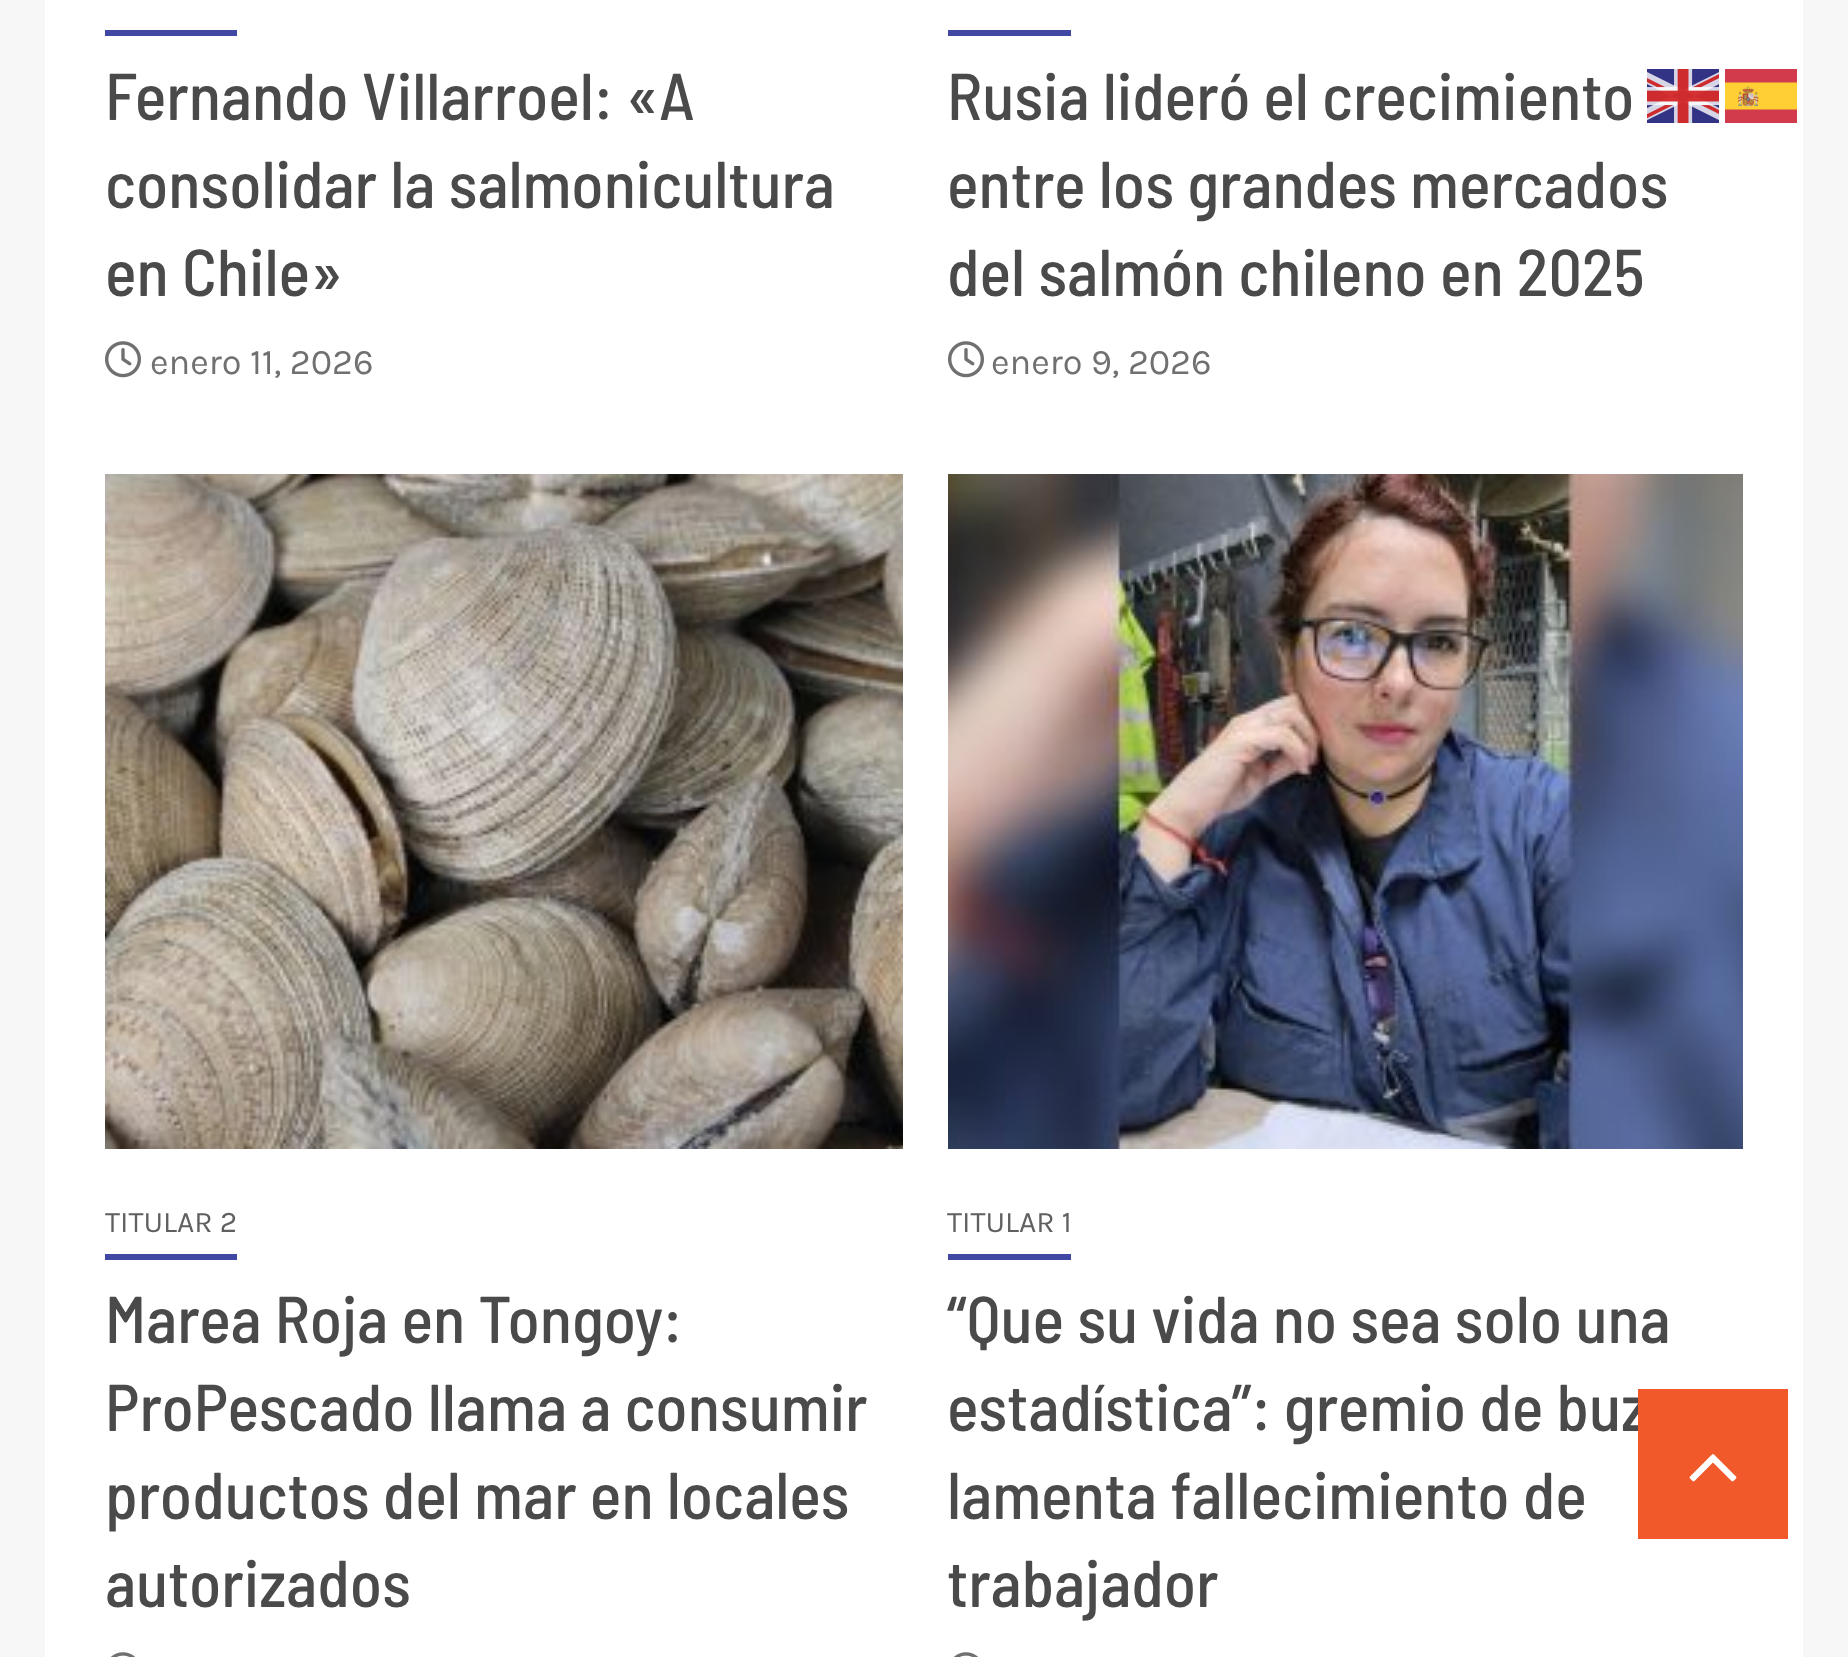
(async () => {
const canvas = document.querySelector("canvas")
canvas.width = 1848
canvas.height = 1657
const c = canvas.getContext("2d")
c.miterLimit = 4
c.fontKerning = "normal"
function T(s,x,y){c.fillText(s,x,y)}
function R(x,y,w,h){c.fillRect(x,y,w,h)}
async function I(src,x,y,w,h){const img=new Image();img.src=src;await img.decode();c.drawImage(img,x,y,w,h)}
c.fillStyle="#f7f7f7"
R(0,0,1848,1657)
c.fillStyle="#fff"
R(45,0,1758,1657)
c.fillStyle="#4048a3"
R(105,30,132,6)
c.font="500 66px Barlow Semi Condensed"
c.fillStyle="#4a4a4a"
T("Fernando Villarroel: «A",105,120)
T("consolidar la salmonicultura",105,208)
T("en Chile»",105,296)
await I("1.png",105,341,36,37)
c.font="36px Karla"
c.fillStyle="#707070"
T("enero 11, 2026",150,374)
c.fillStyle="#4048a3"
R(948,30,123,6)
c.font="500 66px Barlow Semi Condensed"
c.fillStyle="#4a4a4a"
T("Rusia lideró el crecimiento",947,120)
T("entre los grandes mercados",947,208)
T("del salmón chileno en 2025",947,296)
await I("1.png",948,341,36,37)
c.font="36px Karla"
c.fillStyle="#707070"
T("enero 9, 2026",991,374)
await I("2.png",105,474,798,675)
c.fillStyle="#4048a3"
R(105,1254,132,6)
c.font="30px Karla"
c.fillStyle="#606060"
T("TITULAR 2",105,1232)
c.font="500 66px Barlow Semi Condensed"
c.fillStyle="#4a4a4a"
T("Marea Roja en Tongoy:",105,1343)
T("ProPescado llama a consumir",105,1431)
T("productos del mar en locales",105,1519)
T("autorizados",105,1607)
await I("3.png",111,1652,24,5)
await I("4.png",948,474,795,675)
c.fillStyle="#4048a3"
R(948,1254,123,6)
c.font="30px Karla"
c.fillStyle="#606060"
T("TITULAR 1",947,1232)
c.font="500 66px Barlow Semi Condensed"
c.fillStyle="#4a4a4a"
T("“Que su vida no sea solo una",947,1343)
T("estadística”: gremio de buz",947,1431)
T("lamenta fallecimiento de",947,1519)
T("trabajador",947,1607)
await I("3.png",954,1652,24,5)
await I("5.png",1647,69,72,54)
await I("6.png",1725,69,72,54)
c.fillStyle="#f1592a"
R(1638,1389,150,150)
await I("7.png",1689,1454,48,28)
})()
